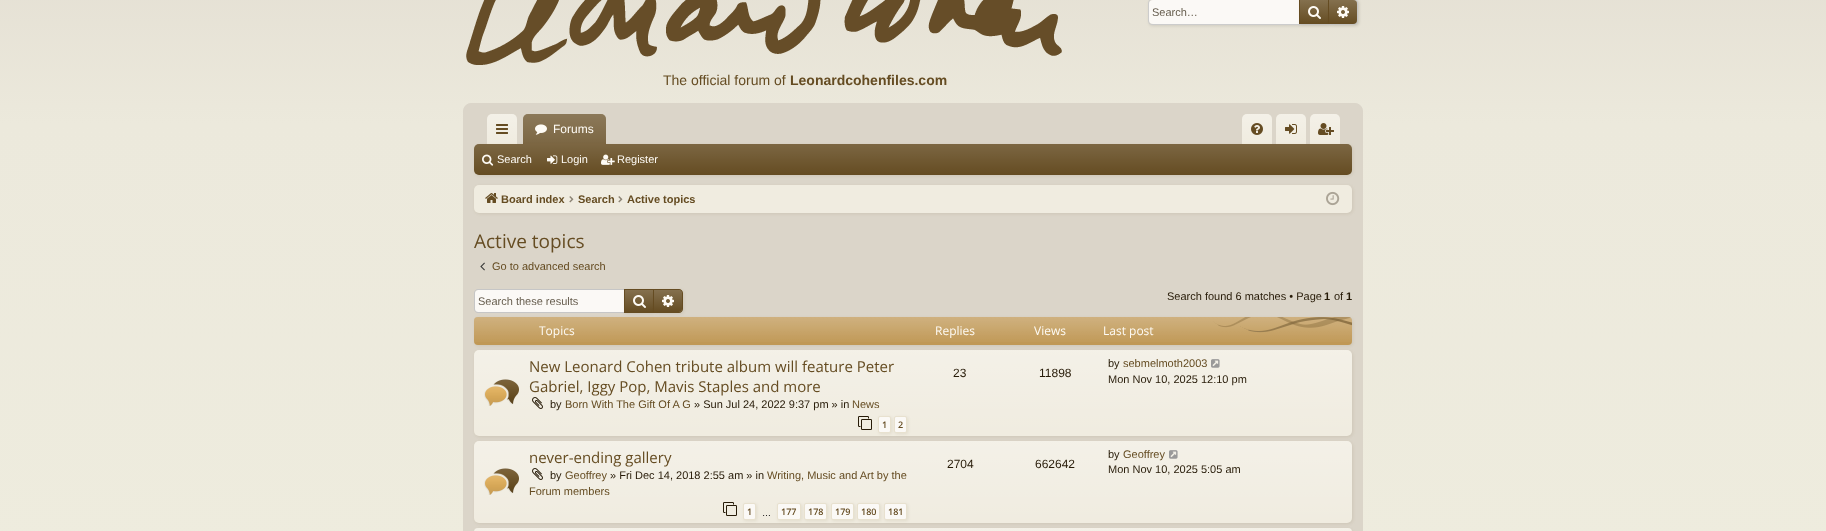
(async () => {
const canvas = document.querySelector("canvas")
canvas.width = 1826
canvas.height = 531
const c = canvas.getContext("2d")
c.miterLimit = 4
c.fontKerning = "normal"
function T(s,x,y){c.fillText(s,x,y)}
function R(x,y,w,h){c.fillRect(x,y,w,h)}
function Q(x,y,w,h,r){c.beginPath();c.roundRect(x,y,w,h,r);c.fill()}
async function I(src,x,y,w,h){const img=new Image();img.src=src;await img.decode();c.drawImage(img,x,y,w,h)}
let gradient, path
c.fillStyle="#fff"
R(0,0,1826,531)
gradient = c.createLinearGradient(913,-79,913,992)
gradient.addColorStop(0,"#e2ddd1")
gradient.addColorStop(.19,"#ece9dc")
gradient.addColorStop(1,"#f0efe0")
c.fillStyle = gradient
R(0,0,1826,531)
c.fillStyle="#0000001a"
c.filter="blur(1.5px)"
c.beginPath()
c.roundRect(1149,0,210,26,4)
c.fill()
c.filter="none"
c.beginPath()
c.roundRect(1148.5,-.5,209,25,3.5)
c.strokeStyle="#ccc"
c.stroke()
c.fillStyle="#fbf9f6"
c.beginPath()
c.roundRect(1149,0,150,24,[4,0,0,4])
c.fill()
c.font="11px Liberation Sans"
c.fillStyle="#675e4f"
T("Search…",1152,16)
c.fillStyle="#654c221a"
c.filter="blur(1.5px)"
c.beginPath()
c.rect(1300,1,30,24)
c.fill()
c.filter="none"
gradient = c.createLinearGradient(1314,0,1314,24)
gradient.addColorStop(0,"#84704e")
gradient.addColorStop(1,"#654c22")
c.fillStyle = gradient
R(1300,0,28,24)
c.fillStyle="#654c22"
R(1328,0,1,24)
R(1299,0,1,24)
await I("1.png",1308,6,13,13)
c.fillStyle="#654c221a"
c.filter="blur(1.5px)"
c.beginPath()
c.roundRect(1330,1,28,24,4)
c.fill()
c.filter="none"
c.fillStyle="#654c22"
c.beginPath()
c.roundRect(1329,0,28,24,[0,4,4,0])
c.fill()
gradient = c.createLinearGradient(1343,0,1343,24)
gradient.addColorStop(0,"#ffffff33")
gradient.addColorStop(1,"#ffffff00")
c.fillStyle = gradient
c.beginPath()
c.roundRect(1329,0,28,24,[0,4,4,0])
c.fill()
await I("2.png",1337,6,12,12)
await I("3.png",466,0,596,65)
c.font="14px Liberation Sans"
c.fillStyle="#654c22"
T("The official forum of",663,85)
c.font="bold 14px Liberation Sans"
T("Leonardcohenfiles.com",790,85)
c.fillStyle="#dbd5c9"
c.beginPath()
c.roundRect(463.5,103.5,899,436,7.5)
c.fill()
c.strokeStyle="#dbd5c9"
c.stroke()
c.fillStyle="#f0ece0"
c.beginPath()
c.roundRect(487,114,30,30,[5,5,0,0])
c.fill()
gradient = c.createLinearGradient(502,114,502,144)
gradient.addColorStop(0,"#ffffff40")
gradient.addColorStop(1,"#ffffff00")
c.fillStyle = gradient
c.beginPath()
c.roundRect(487,114,30,30,[5,5,0,0])
c.fill()
await I("4.png",496,124,12,10)
c.fillStyle="#654c22"
c.beginPath()
c.roundRect(523,114,83,30,[5,5,0,0])
c.fill()
gradient = c.createLinearGradient(565,114,565,144)
gradient.addColorStop(0,"#ffffff40")
gradient.addColorStop(1,"#ffffff26")
c.fillStyle = gradient
c.beginPath()
c.roundRect(523,114,83,30,[5,5,0,0])
c.fill()
await I("5.png",535,124,12,11)
c.font="12px Liberation Sans"
c.fillStyle="#fefbf5"
T("Forums",553,133)
c.fillStyle="#f0ece0"
c.beginPath()
c.roundRect(1242,114,30,30,[5,5,0,0])
c.fill()
gradient = c.createLinearGradient(1257,114,1257,144)
gradient.addColorStop(0,"#ffffff40")
gradient.addColorStop(1,"#ffffff00")
c.fillStyle = gradient
c.beginPath()
c.roundRect(1242,114,30,30,[5,5,0,0])
c.fill()
c.fillStyle="#f0ece0"
c.beginPath()
c.roundRect(1276,114,30,30,[5,5,0,0])
c.fill()
gradient = c.createLinearGradient(1291,114,1291,144)
gradient.addColorStop(0,"#ffffff40")
gradient.addColorStop(1,"#ffffff00")
c.fillStyle = gradient
c.beginPath()
c.roundRect(1276,114,30,30,[5,5,0,0])
c.fill()
c.fillStyle="#f0ece0"
c.beginPath()
c.roundRect(1310,114,30,30,[5,5,0,0])
c.fill()
gradient = c.createLinearGradient(1325,114,1325,144)
gradient.addColorStop(0,"#ffffff40")
gradient.addColorStop(1,"#ffffff00")
c.fillStyle = gradient
c.beginPath()
c.roundRect(1310,114,30,30,[5,5,0,0])
c.fill()
c.fillStyle="#654c221a"
c.filter="blur(1.5px)"
c.beginPath()
c.roundRect(475,145,878,31,5)
c.fill()
c.filter="none"
c.fillStyle="#654c22"
Q(474,144,878,31,5)
gradient = c.createLinearGradient(913,144,913,175)
gradient.addColorStop(0,"#ffffff26")
gradient.addColorStop(1,"#ffffff00")
c.fillStyle = gradient
Q(474,144,878,31,5)
c.fillStyle="#654c22"
c.beginPath()
c.roundRect(523,143,83,2,[2,2,0,0])
c.fill()
c.fillStyle="#ffffff26"
c.beginPath()
c.roundRect(523,143,83,2,[2,2,0,0])
c.fill()
await I("6.png",1251,123,12,12)
await I("7.png",1285,124,12,10)
await I("8.png",1318,123,16,12)
await I("9.png",482,154,12,12)
c.font="11px Liberation Sans"
c.fillStyle="#fefbf5"
T("Search",497,163)
await I("10.png",547,155,11,9)
T("Login",561,163)
await I("11.png",601,154,14,11)
T("Register",617,163)
c.fillStyle="#654c221a"
c.filter="blur(1.5px)"
c.beginPath()
c.roundRect(475,186,878,28,5)
c.fill()
c.filter="none"
c.fillStyle="#f0ece0"
Q(474,185,878,28,5)
await I("12.png",485,193,13,10)
c.font="bold 11px Liberation Sans"
c.fillStyle="#654c22"
T("Board index",501,203)
await I("13.png",569,196,5,7)
T("Search",578,203)
await I("13.png",618,196,5,7)
T("Active topics",627,203)
await I("14.png",1326,191,14,15)
c.font="19px Open Sans"
T("Active topics",474,248)
await I("15.png",480,262,5,9)
c.font="11px Liberation Sans"
T("Go to advanced search",492,270)
c.fillStyle="#fbf9f6"
c.beginPath()
c.roundRect(475,290,149,22,[3,0,0,3])
c.fill()
c.fillStyle="#c6c6c6"
path = new Path2D("M478 289h146v24h-146c-2 0-4-2-4-4v-16c0-2 2-4 4-4zm0 1h146v22h-146c-2 0-3-1-3-3v-16c0-2 1-3 3-3z")
c.fill(path,"evenodd")
c.fillStyle="#675e4f"
T("Search these results",478,305)
c.fillStyle="#654c221a"
c.filter="blur(1.5px)"
c.beginPath()
c.rect(625,290,30,24)
c.fill()
c.filter="none"
gradient = c.createLinearGradient(639,290,639,312)
gradient.addColorStop(0,"#84704e")
gradient.addColorStop(1,"#654c22")
c.fillStyle = gradient
R(625,290,28,22)
c.strokeStyle="#654c22"
c.strokeRect(624.5,289.5,29,23)
await I("16.png",633,295,13,13)
c.fillStyle="#654c221a"
c.filter="blur(1.5px)"
c.beginPath()
c.roundRect(655,290,29,24,4)
c.fill()
c.filter="none"
c.fillStyle="#654c22"
c.beginPath()
c.roundRect(654,290,28,22,[0,3,3,0])
c.fill()
gradient = c.createLinearGradient(668,290,668,312)
gradient.addColorStop(0,"#ffffff33")
gradient.addColorStop(1,"#ffffff00")
c.fillStyle = gradient
c.beginPath()
c.roundRect(654,290,28,22,[0,3,3,0])
c.fill()
c.fillStyle="#654c22"
path = new Path2D("M654 289h25c2 0 4 2 4 4v16c0 2-2 4-4 4h-25zm0 1h25c1.5 0 3 1.5 3 3v16c0 1.5-1.5 3-3 3h-25z")
c.fill(path,"evenodd")
await I("17.png",662,295,12,12)
c.fillStyle="#271b08"
T("Search found 6 matches • Page",1167,300)
c.font="bold 11px Liberation Sans"
T("1",1324,300)
c.font="11px Liberation Sans"
T("of",1334,300)
c.font="bold 11px Liberation Sans"
T("1",1346,300)
c.fillStyle="#654c221a"
c.filter="blur(1.5px)"
c.beginPath()
c.roundRect(475,351,878,86,5)
c.fill()
c.filter="none"
c.fillStyle="#f0ece0"
Q(474,350,878,86,5)
gradient = c.createLinearGradient(913,350,913,436)
gradient.addColorStop(0,"#ffffff40")
gradient.addColorStop(1,"#ffffff00")
c.fillStyle = gradient
Q(474,350,878,86,5)
c.fillStyle="#654c221a"
c.filter="blur(1.5px)"
c.beginPath()
c.roundRect(475,318,878,28,4)
c.fill()
c.filter="none"
c.fillStyle="#c09855"
Q(474,317,878,28,4)
await I("18.png",474,317,878,25)
c.font="12px Open Sans"
c.fillStyle="#fefbf5"
T("Topics",539,335)
T("Replies",935,335)
T("Views",1034,335)
T("Last post",1103,335)
await I("19.png",484,379,35,27)
c.font="15px Open Sans"
c.fillStyle="#654c22"
T("New Leonard Cohen tribute album will feature Peter",529,372)
T("Gabriel, Iggy Pop, Mavis Staples and more",529,392)
await I("20.png",532,397,11,12)
c.font="11px Liberation Sans"
c.fillStyle="#271b08"
T("by",550,408)
c.fillStyle="#654c22"
T("Born With The Gift Of A G",565,408)
c.fillStyle="#271b08"
T("» Sun Jul 24, 2022 9:37 pm » in",694,408)
c.fillStyle="#654c22"
T("News",852,408)
await I("21.png",858,416,14,14)
c.fillStyle="#654c221a"
c.filter="blur(1.5px)"
c.beginPath()
c.roundRect(879,417,13,17,2)
c.fill()
c.filter="none"
c.fillStyle="#fbf9f6"
c.beginPath()
c.roundRect(878.5,416.5,12,16,1.5)
c.fill()
c.strokeStyle="#e8e1cf"
c.stroke()
c.font="600 9px Open Sans"
c.fillStyle="#654c22"
T("1",882,428)
c.fillStyle="#654c221a"
c.filter="blur(1.5px)"
c.beginPath()
c.roundRect(895,417,13,17,2)
c.fill()
c.filter="none"
c.fillStyle="#fbf9f6"
c.beginPath()
c.roundRect(894.5,416.5,12,16,1.5)
c.fill()
c.stroke()
c.fillStyle="#654c22"
T("2",898,428)
c.font="12px Liberation Sans"
c.fillStyle="#271b08"
T("23",953,377)
T("11898",1039,377)
c.font="11px Liberation Sans"
T("by",1108,367)
c.fillStyle="#654c22"
T("sebmelmoth2003",1123,367)
await I("22.png",1211,359,9,9)
c.fillStyle="#271b08"
T("Mon Nov 10, 2025 12:10 pm",1108,383)
c.fillStyle="#654c221a"
c.filter="blur(1.5px)"
c.beginPath()
c.roundRect(475,442,878,82,5)
c.fill()
c.filter="none"
c.fillStyle="#f0ece0"
Q(474,441,878,82,5)
gradient = c.createLinearGradient(913,441,913,523)
gradient.addColorStop(0,"#ffffff40")
gradient.addColorStop(1,"#ffffff00")
c.fillStyle = gradient
Q(474,441,878,82,5)
await I("23.png",484,468,35,27)
c.font="15px Open Sans"
c.fillStyle="#654c22"
T("never-ending gallery",529,463)
await I("24.png",532,468,11,12)
c.font="11px Liberation Sans"
c.fillStyle="#271b08"
T("by",550,479)
c.fillStyle="#654c22"
T("Geoffrey",565,479)
c.fillStyle="#271b08"
T("» Fri Dec 14, 2018 2:55 am » in",610,479)
c.fillStyle="#654c22"
T("Writing, Music and Art by the",767,479)
T("Forum members",529,495)
await I("25.png",723,502,14,14)
c.fillStyle="#654c221a"
c.filter="blur(1.5px)"
c.beginPath()
c.roundRect(744,504,13,17,2)
c.fill()
c.filter="none"
c.fillStyle="#fbf9f6"
c.beginPath()
c.roundRect(743.5,503.5,12,16,1.5)
c.fill()
c.stroke()
c.font="600 9px Open Sans"
c.fillStyle="#654c22"
T("1",747,515)
c.font="9px Liberation Sans"
c.fillStyle="#000"
T("…",762,516)
c.fillStyle="#654c221a"
c.filter="blur(1.5px)"
c.beginPath()
c.roundRect(778,504,24,17,2)
c.fill()
c.filter="none"
c.fillStyle="#fbf9f6"
c.beginPath()
c.roundRect(777.5,503.5,23,16,1.5)
c.fill()
c.stroke()
c.font="600 9px Open Sans"
c.fillStyle="#654c22"
T("177",781,515)
c.fillStyle="#654c221a"
c.filter="blur(1.5px)"
c.beginPath()
c.roundRect(805,504,23,17,2)
c.fill()
c.filter="none"
c.fillStyle="#fbf9f6"
c.beginPath()
c.roundRect(804.5,503.5,22,16,1.5)
c.fill()
c.stroke()
c.fillStyle="#654c22"
T("178",808,515)
c.fillStyle="#654c221a"
c.filter="blur(1.5px)"
c.beginPath()
c.roundRect(832,504,23,17,2)
c.fill()
c.filter="none"
c.fillStyle="#fbf9f6"
c.beginPath()
c.roundRect(831.5,503.5,22,16,1.5)
c.fill()
c.stroke()
c.fillStyle="#654c22"
T("179",835,515)
c.fillStyle="#654c221a"
c.filter="blur(1.5px)"
c.beginPath()
c.roundRect(858,504,23,17,2)
c.fill()
c.filter="none"
c.fillStyle="#fbf9f6"
c.beginPath()
c.roundRect(857.5,503.5,22,16,1.5)
c.fill()
c.stroke()
c.fillStyle="#654c22"
T("180",861,515)
c.fillStyle="#654c221a"
c.filter="blur(1.5px)"
c.beginPath()
c.roundRect(885,504,23,17,2)
c.fill()
c.filter="none"
c.fillStyle="#fbf9f6"
c.beginPath()
c.roundRect(884.5,503.5,22,16,1.5)
c.fill()
c.stroke()
c.fillStyle="#654c22"
T("181",888,515)
c.font="12px Liberation Sans"
c.fillStyle="#271b08"
T("2704",947,468)
T("662642",1035,468)
c.font="11px Liberation Sans"
T("by",1108,458)
c.fillStyle="#654c22"
T("Geoffrey",1123,458)
await I("26.png",1169,450,9,9)
c.fillStyle="#271b08"
T("Mon Nov 10, 2025 5:05 am",1108,473)
c.fillStyle="#654c221a"
c.filter="blur(1.5px)"
c.beginPath()
c.roundRect(475,529,878,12,5)
c.fill()
c.filter="none"
c.fillStyle="#f0ece0"
Q(474,528,878,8,5)
gradient = c.createLinearGradient(913,528,913,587)
gradient.addColorStop(0,"#ffffff40")
gradient.addColorStop(1,"#ffffff00")
c.fillStyle = gradient
Q(474,528,878,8,5)
})()
